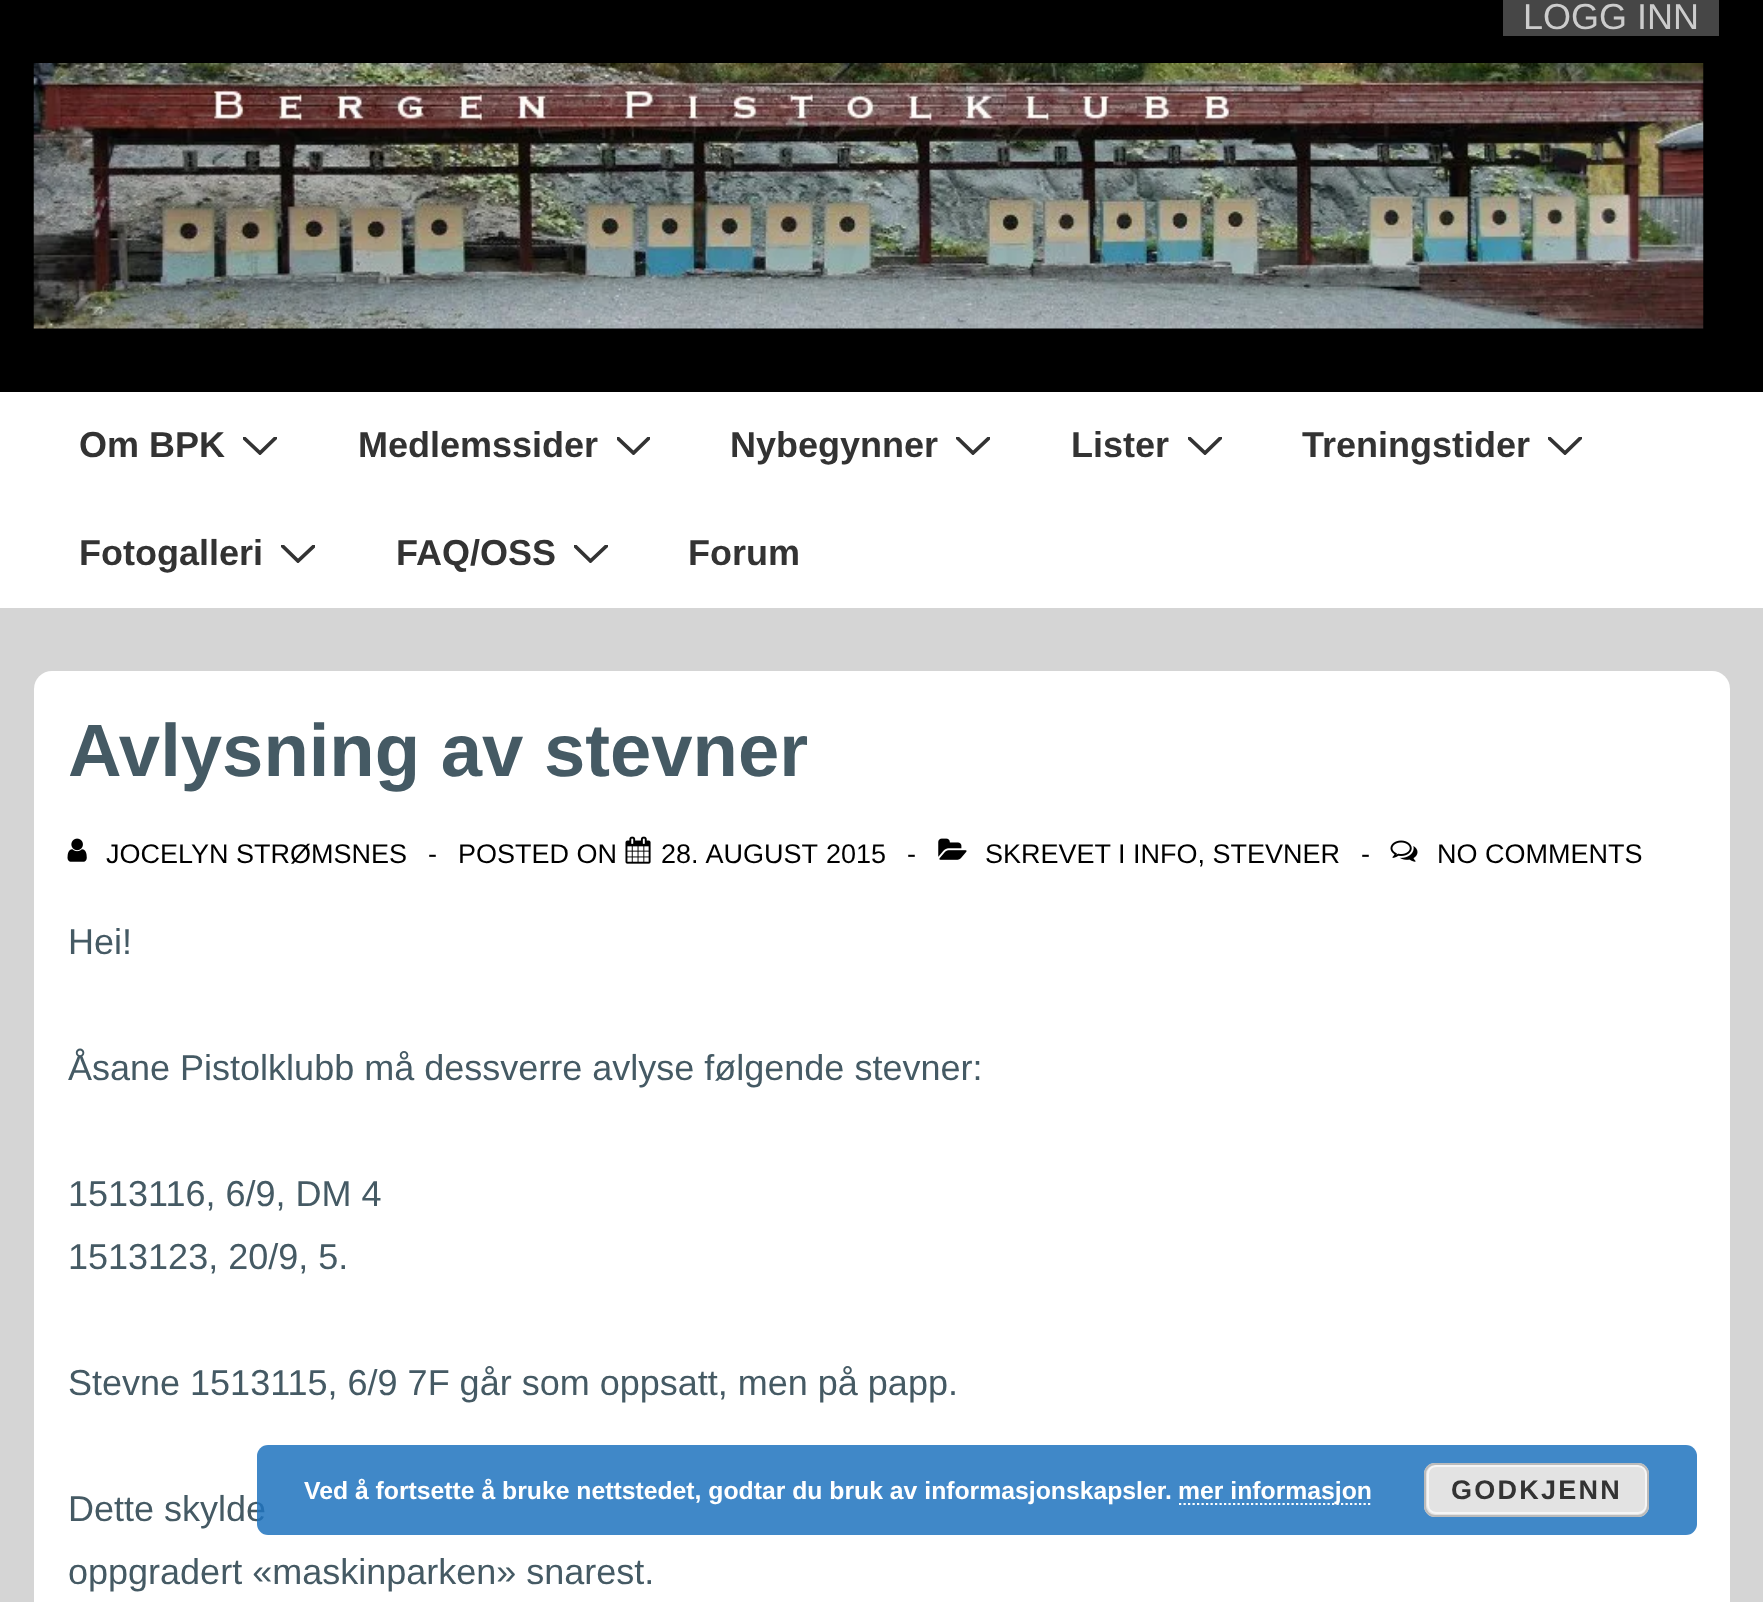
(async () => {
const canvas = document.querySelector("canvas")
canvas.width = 1763
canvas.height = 1602
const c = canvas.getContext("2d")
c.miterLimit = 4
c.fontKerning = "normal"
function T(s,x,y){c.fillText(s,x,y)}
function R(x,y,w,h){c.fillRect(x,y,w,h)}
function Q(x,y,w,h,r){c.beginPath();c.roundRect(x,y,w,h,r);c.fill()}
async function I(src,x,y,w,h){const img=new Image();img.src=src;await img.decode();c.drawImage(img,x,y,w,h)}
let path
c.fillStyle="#d5d5d5"
R(0,0,1763,1602)
c.fillStyle="#000"
R(0,0,1763,392)
c.fillStyle="#464646"
R(1503,0,216,36)
c.font="36px Liberation Sans"
c.fillStyle="#ccc"
T("LOGG INN",1523,29)
await I("1.png",33,63,1671,266)
c.fillStyle="#fff"
R(0,392,1763,216)
c.font="bold 36px Liberation Sans"
c.fillStyle="#333"
T("Om BPK",79,457)
c.save()
c.beginPath()
c.rect(243,437,34,18)
c.clip()
path = new Path2D("M244 438l16 15l15.5-15")
c.strokeStyle="#333"
c.lineWidth=3.7
c.lineCap="round"
c.stroke(path)
c.restore()
T("Medlemssider",358,457)
c.save()
c.beginPath()
c.rect(617,437,33,18)
c.clip()
path = new Path2D("M617.5 438l16 15l15.5-15")
c.strokeStyle="#333"
c.lineWidth=3.7
c.lineCap="round"
c.stroke(path)
c.restore()
T("Nybegynner",730,457)
c.save()
c.beginPath()
c.rect(956,437,34,18)
c.clip()
path = new Path2D("M957.5 438l15.5 15l16-15")
c.strokeStyle="#333"
c.lineWidth=3.7
c.lineCap="round"
c.stroke(path)
c.restore()
T("Lister",1071,457)
c.save()
c.beginPath()
c.rect(1188,437,34,18)
c.clip()
path = new Path2D("M1189 438l16 15l15.5-15")
c.strokeStyle="#333"
c.lineWidth=3.7
c.lineCap="round"
c.stroke(path)
c.restore()
T("Treningstider",1302,457)
c.save()
c.beginPath()
c.rect(1548,437,34,18)
c.clip()
path = new Path2D("M1549 438l16 15l15.5-15")
c.strokeStyle="#333"
c.lineWidth=3.7
c.lineCap="round"
c.stroke(path)
c.restore()
T("Fotogalleri",79,565)
c.save()
c.beginPath()
c.rect(281,545,34,18)
c.clip()
path = new Path2D("M282.5 546l15.5 15l16-15")
c.strokeStyle="#333"
c.lineWidth=3.7
c.lineCap="round"
c.stroke(path)
c.restore()
T("FAQ/OSS",396,565)
c.save()
c.beginPath()
c.rect(574,545,34,18)
c.clip()
path = new Path2D("M575 546l15.5 15l16-15")
c.strokeStyle="#333"
c.lineWidth=3.7
c.lineCap="round"
c.stroke(path)
c.restore()
T("Forum",688,565)
c.fillStyle="#fff"
Q(34,671,1696,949,18)
c.font="bold 74.25px Liberation Sans"
c.fillStyle="#455a64"
T("Avlysning av stevner",68,776)
await I("2.png",67,838,20,24)
c.font="27px Liberation Sans"
c.fillStyle="#000"
T("JOCELYN STRØMSNES",106,863)
T("-",428,863)
T("POSTED ON",458,863)
await I("3.png",625,836,26,28)
c.wordSpacing="1px"
T("28. AUGUST 2015",661,863)
c.wordSpacing="0px"
T("-",907,863)
await I("4.png",938,838,29,22)
T("SKREVET I INFO, STEVNER",985,863)
T("-",1361,863)
await I("5.png",1390,840,28,22)
T("NO COMMENTS",1437,863)
c.font="36px Liberation Sans"
c.fillStyle="#455a64"
T("Hei!",68,954)
T("Åsane Pistolklubb må dessverre avlyse følgende stevner:",68,1080)
T("1513116, 6/9, DM 4",68,1206)
T("1513123, 20/9, 5.",68,1269)
T("Stevne 1513115, 6/9 7F går som oppsatt, men på papp.",68,1395)
T("Dette skylde",68,1521)
T("oppgradert «maskinparken» snarest.",68,1584)
c.fillStyle="#1e73bed9"
Q(257,1445,1440,90,11)
c.font="bold 24.75px Liberation Sans"
c.fillStyle="#fff"
T("Ved å fortsette å bruke nettstedet, godtar du bruk av informasjonskapsler.",304,1499)
path = new Path2D("M1179 1504h193.5")
c.strokeStyle="#fff"
c.lineWidth=2.2
c.setLineDash([2.25,2.25])
c.stroke(path)
T("mer informasjon",1178,1499)
c.fillStyle="#e3e3e3"
Q(1424,1463,225,54,11)
c.beginPath()
c.roundRect(1428,1466,218,47,8)
c.strokeStyle="#f6f6f6"
c.lineWidth=2
c.setLineDash([])
c.stroke()
c.beginPath()
c.roundRect(1425,1464,223,52,10)
c.strokeStyle="#bbb"
c.stroke()
c.letterSpacing="2.25px"
c.font="bold 27px Liberation Sans"
c.fillStyle="#333"
T("GODKJENN",1451,1499)
})()
